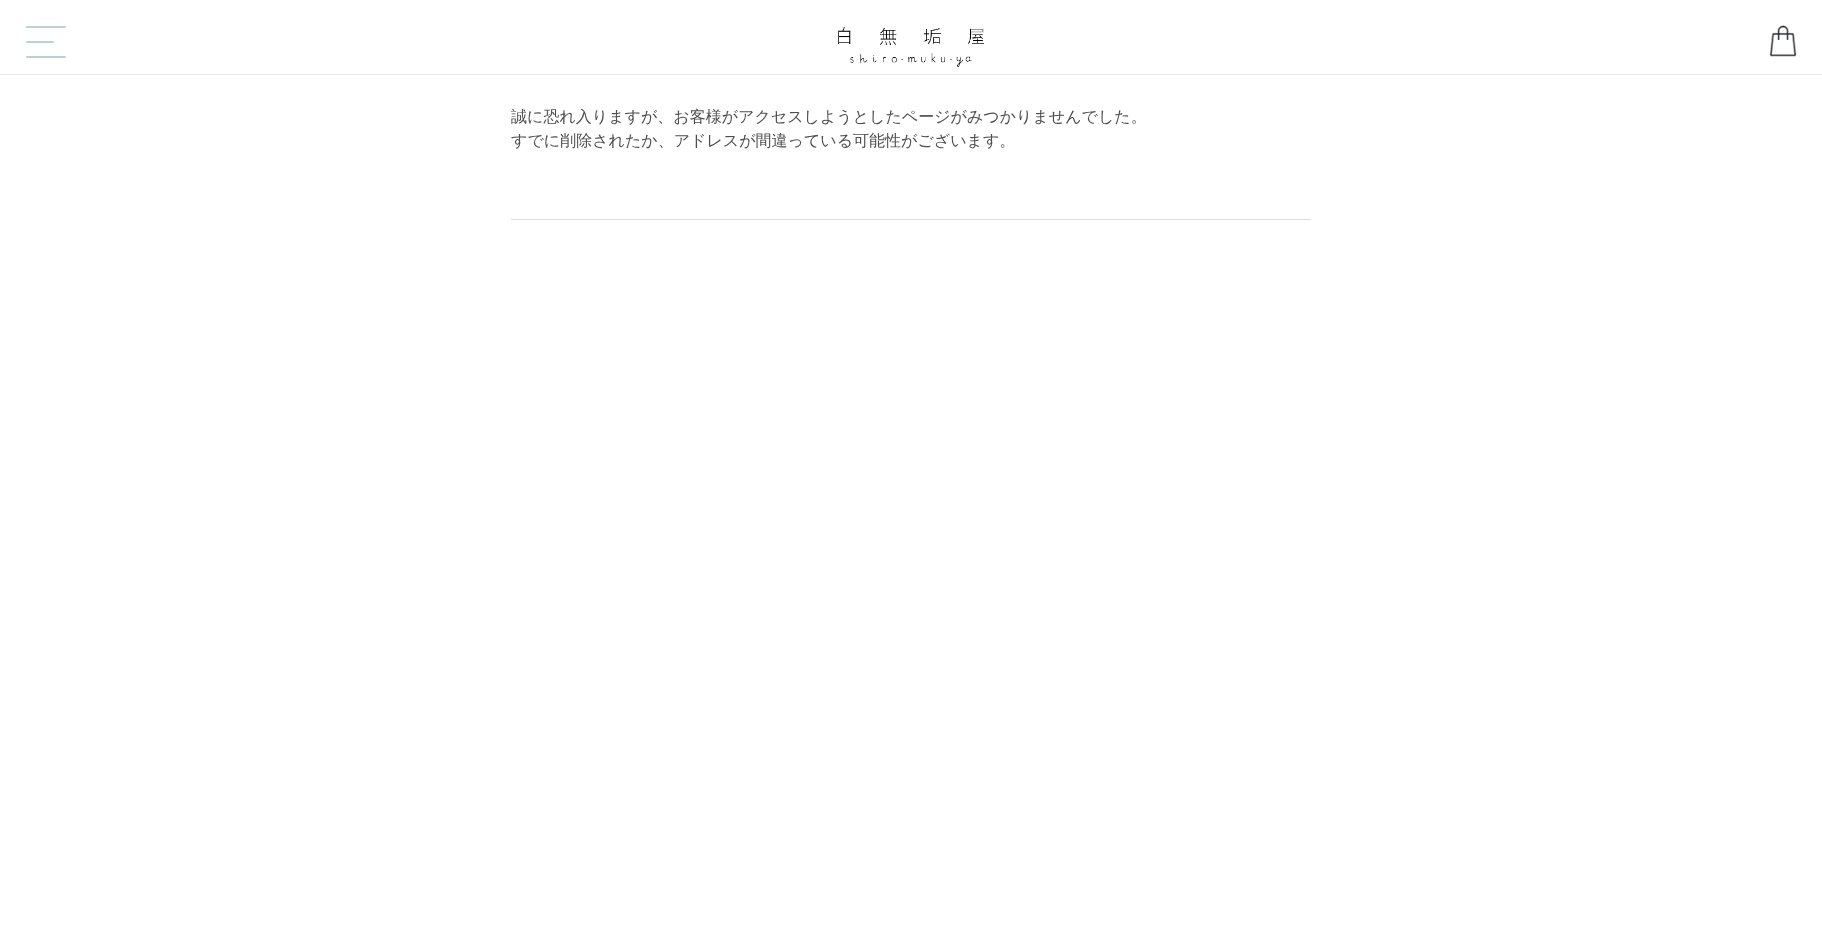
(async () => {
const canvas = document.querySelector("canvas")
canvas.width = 1822
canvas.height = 927
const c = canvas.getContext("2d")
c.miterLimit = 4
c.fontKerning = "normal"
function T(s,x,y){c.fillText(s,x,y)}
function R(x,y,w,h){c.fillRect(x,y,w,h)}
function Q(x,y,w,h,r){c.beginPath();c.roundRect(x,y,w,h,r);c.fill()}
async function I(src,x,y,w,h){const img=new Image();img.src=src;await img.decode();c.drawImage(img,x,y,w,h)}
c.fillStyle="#fff"
R(0,0,1822,927)
c.fillStyle="#eaeaea"
R(0,74,1822,1)
c.fillStyle="#bad2d3"
Q(26,26,40,2,1)
Q(26,41,28,2,1)
Q(26,56,40,2,1)
await I("1.png",838,27,146,40)
await I("2.png",1769,25,28,32)
c.font="500 16px WenQuanYi Zen Hei"
c.fillStyle="#4d4d4d"
T("誠に恐れ入りますが、お客様がアクセスしようとしたページがみつかりませんでした。",511,122)
T("すでに削除されたか、アドレスが間違っている可能性がございます。",511,146)
c.fillStyle="#ddd"
R(511,219,800,1)
})()
